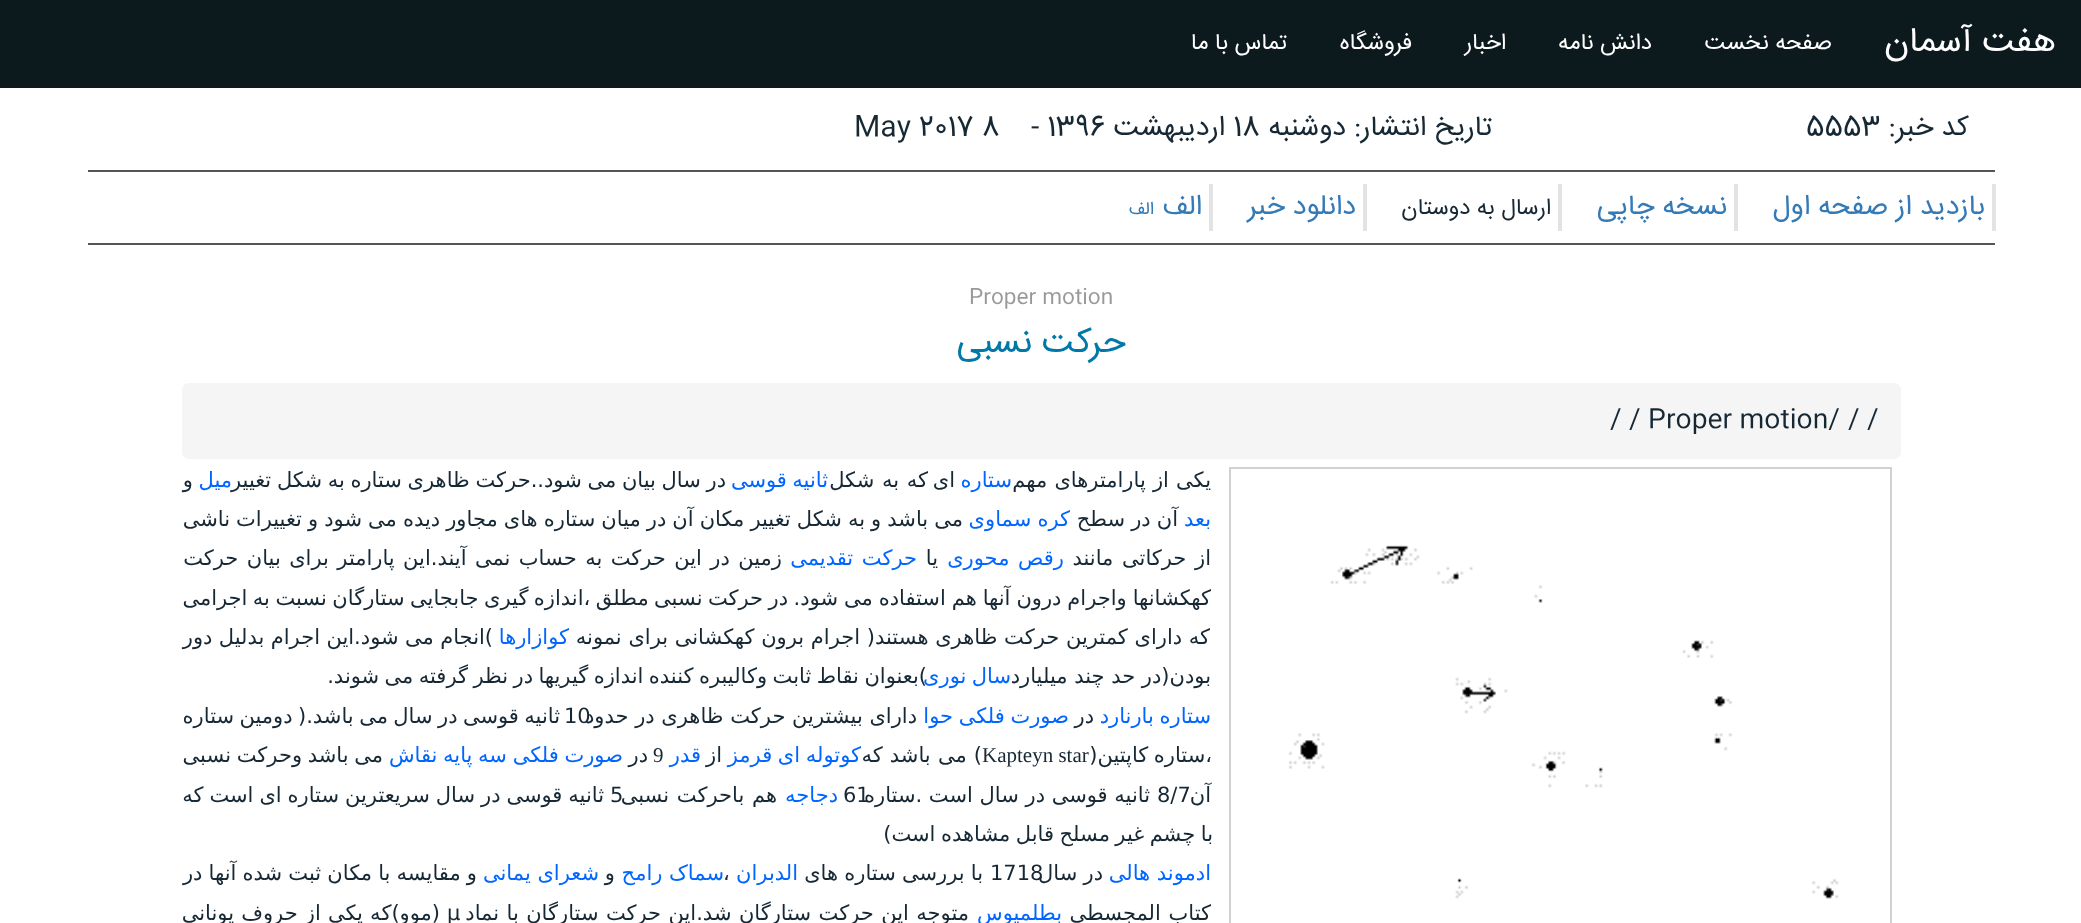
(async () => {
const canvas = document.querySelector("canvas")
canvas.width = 2081
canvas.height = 923
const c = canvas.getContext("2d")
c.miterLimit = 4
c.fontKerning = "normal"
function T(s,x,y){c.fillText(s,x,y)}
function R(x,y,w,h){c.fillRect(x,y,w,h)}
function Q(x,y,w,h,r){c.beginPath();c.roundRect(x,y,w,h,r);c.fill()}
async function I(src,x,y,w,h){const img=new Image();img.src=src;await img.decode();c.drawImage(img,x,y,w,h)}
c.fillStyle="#fff"
R(0,0,2081,923)
c.fillStyle="#0c1a1e"
R(0,0,2081,88)
c.direction="rtl"
c.font="35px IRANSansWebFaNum"
c.fillStyle="#fff"
T("هفت آسمان",2056,51)
c.font="22.75px IRANSansWebFaNum"
T("صفحه نخست",1832,49)
T("دانش نامه",1652,49)
T("اخبار",1506,49)
T("فروشگاه",1412,49)
T("تماس با ما",1287,49)
c.font="28px IRANSansWebFaNum"
c.fillStyle="#172835"
T("کد خبر:",1969,135)
c.direction="ltr"
T("5553",1806,135)
c.direction="rtl"
T("تاریخ انتشار:",1492,135)
T("دوشنبه",1346,135)
c.direction="ltr"
T("18",1233,135)
c.direction="rtl"
T("اردیبهشت",1225,135)
c.direction="ltr"
T("1396",1047,135)
T("-",1031,135)
T("May 2017 8",854,135)
c.fillStyle="#555"
R(88,170,1907,2)
R(88,243,1907,2)
c.fillStyle="#e3e3e3"
R(1992,184,4,47)
c.direction="rtl"
c.fillStyle="#337ab7"
T("بازدید از صفحه اول",1985,214)
c.fillStyle="#e3e3e3"
R(1734,184,4,47)
c.fillStyle="#337ab7"
T("نسخه چاپی",1727,214)
c.fillStyle="#e3e3e3"
R(1558,184,4,47)
c.font="22.75px IRANSansWebFaNum"
c.fillStyle="#172835"
T("ارسال به دوستان",1551,214)
c.fillStyle="#e3e3e3"
R(1363,184,4,47)
c.font="28px IRANSansWebFaNum"
c.fillStyle="#337ab7"
T("دانلود خبر",1356,214)
c.fillStyle="#e3e3e3"
R(1209,184,4,47)
c.fillStyle="#337ab7"
T("الف",1202,214)
c.font="18px IRANSansWebFaNum"
T("الف",1154,214)
c.direction="ltr"
c.font="21px IRANSansWebFaNum"
c.fillStyle="#999"
T("Proper motion",969,303)
c.direction="rtl"
c.font="35px IRANSansWebFaNum"
c.fillStyle="#0079a9"
T("حرکت نسبی",1126,352)
c.fillStyle="#f5f5f5"
Q(182,383,1719,76,7)
c.direction="ltr"
c.font="26.25px IRANSansWebFaNum"
c.fillStyle="#172835"
T("/",1867,427)
T("/",1848,427)
T("/ Proper motion/",1629,427)
T("/",1610,427)
c.strokeStyle="#d2d0d0"
c.lineWidth=2
c.strokeRect(1230,468,661,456)
await I("1.png",1288,545,551,354)
c.wordSpacing="0.5px"
c.direction="rtl"
c.font="21px DejaVu Sans"
T("یکی از پارامترهای مهم",1211,487)
c.wordSpacing="0px"
c.fillStyle="#06f"
T("ستاره",1012,487)
c.fillStyle="#172835"
T("ای",955,487)
c.wordSpacing="1px"
T("که به شکل",928,487)
c.wordSpacing="-1.25px"
c.fillStyle="#06f"
T("ثانیه قوسی",828,487)
c.wordSpacing="-1px"
c.fillStyle="#172835"
T("در سال بیان می شود..حرکت ظاهری ستاره به شکل تغییر",726,487)
c.wordSpacing="0px"
c.fillStyle="#06f"
T("میل",232,487)
c.fillStyle="#172835"
T("و",193,487)
c.fillStyle="#06f"
T("بعد",1211,526)
c.wordSpacing="-0.6px"
c.fillStyle="#172835"
T("آن در سطح",1178,526)
c.fillStyle="#06f"
T("کره سماوی",1070,526)
c.fillStyle="#172835"
T("می باشد و به شکل تغییر مکان آن در میان ستاره های مجاور دیده می شود و تغییرات ناشی",963,526)
c.wordSpacing="2px"
T("از حرکاتی مانند",1211,565)
c.fillStyle="#06f"
T("رقص محوری",1064,565)
c.wordSpacing="0px"
c.fillStyle="#172835"
T("یا",938,565)
c.wordSpacing="2px"
c.fillStyle="#06f"
T("حرکت تقدیمی",917,565)
c.wordSpacing="1.75px"
c.fillStyle="#172835"
T("زمین در این حرکت به حساب نمی آیند.این پارامتر برای بیان حرکت",782,565)
c.wordSpacing="-0.75px"
T("کهکشانها واجرام درون آنها هم استفاده می شود.",1211,605)
c.wordSpacing="-1.25px"
T("در حرکت نسبی مطلق ،اندازه گیری جابجایی ستارگان نسبت به اجرامی",788,605)
c.wordSpacing="0px"
T("که دارای کمترین حرکت ظاهری هستند( اجرام برون کهکشانی برای نمونه",1210,644)
c.fillStyle="#06f"
T("کوازارها",569,644)
c.wordSpacing="-0.25px"
c.fillStyle="#172835"
T(")انجام می شود.این اجرام بدلیل دور",493,644)
c.wordSpacing="0px"
T("بودن(در حد چند میلیارد",1211,683)
c.wordSpacing="-1.25px"
c.fillStyle="#06f"
T("سال نوری",1011,683)
c.fillStyle="#172835"
T(")بعنوان نقاط ثابت وکالیبره کننده اندازه گیریها در نظر گرفته می شوند.",927,683)
c.wordSpacing="-1px"
c.fillStyle="#06f"
T("ستاره بارنارد",1211,723)
c.wordSpacing="0px"
c.fillStyle="#172835"
T("در",1094,723)
c.wordSpacing="-1px"
c.fillStyle="#06f"
T("صورت فلکی حوا",1069,723)
c.wordSpacing="-1.25px"
c.fillStyle="#172835"
T("ثانیه قوسی در سال می باشد.( دومین ستاره",560,723)
c.wordSpacing="0px"
c.direction="ltr"
T("10",564,723)
c.direction="rtl"
T("دارای بیشترین حرکت ظاهری در حدود",917,723)
c.wordSpacing="-1.25px"
T("،ستاره کاپتین(",1212,762)
c.wordSpacing="0px"
c.direction="ltr"
c.font="21px Liberation Serif"
T("Kapteyn star",982,762)
c.wordSpacing="0.5px"
c.direction="rtl"
c.font="21px DejaVu Sans"
T(") می باشد که",982,762)
c.wordSpacing="-1px"
c.fillStyle="#06f"
T("کوتوله ای قرمز",861,762)
c.wordSpacing="0px"
c.fillStyle="#172835"
T("از",722,762)
c.fillStyle="#06f"
T("قدر",701,762)
c.direction="ltr"
c.font="21px Liberation Serif"
c.fillStyle="#172835"
T("9",653,762)
c.direction="rtl"
c.font="21px DejaVu Sans"
T("در",648,762)
c.wordSpacing="-1px"
c.fillStyle="#06f"
T("صورت فلکی سه پایه نقاش",623,762)
c.fillStyle="#172835"
T("می باشد وحرکت نسبی",383,762)
c.wordSpacing="0px"
T("آن",1211,802)
c.direction="ltr"
T("8/7",1157,802)
T("61",843,802)
c.direction="rtl"
T("ثانیه قوسی در سال است .ستاره",1150,802)
c.fillStyle="#06f"
T("دجاجه",838,802)
c.direction="ltr"
c.fillStyle="#172835"
T("5",610,802)
c.wordSpacing="1px"
c.direction="rtl"
T("هم باحرکت نسبی",777,802)
c.wordSpacing="-0.75px"
T("ثانیه قوسی در سال سریعترین ستاره ای است که",604,802)
c.wordSpacing="-1.25px"
T("با چشم غیر مسلح قابل مشاهده است)",1213,841)
c.wordSpacing="0px"
c.fillStyle="#06f"
T("ادموند هالی",1211,880)
c.direction="ltr"
c.fillStyle="#172835"
T("1718",990,880)
c.wordSpacing="-0.5px"
c.direction="rtl"
T("در سال",1103,880)
T("با بررسی ستاره های",983,880)
c.wordSpacing="0px"
c.fillStyle="#06f"
T("الدبران",798,880)
c.direction="ltr"
c.fillStyle="#172835"
T("،",723,880)
c.direction="rtl"
c.fillStyle="#06f"
T("سماک رامح",724,880)
c.fillStyle="#172835"
T("و",615,880)
c.fillStyle="#06f"
T("شعرای یمانی",599,880)
c.wordSpacing="-0.5px"
c.fillStyle="#172835"
T("و مقایسه با مکان ثبت شده آنها در",477,880)
c.wordSpacing="1px"
T("کتاب المجسطی",1211,920)
c.wordSpacing="0px"
c.fillStyle="#06f"
T("بطلمیوس",1062,920)
c.wordSpacing="0.75px"
c.fillStyle="#172835"
T("متوجه این حرکت ستارگان شد.این حرکت ستارگان با نماد",969,920)
c.wordSpacing="0px"
c.direction="ltr"
T("μ",447,920)
c.wordSpacing="0.5px"
c.direction="rtl"
T("(موو)که یکی از حروف یونانی",440,920)
})()
